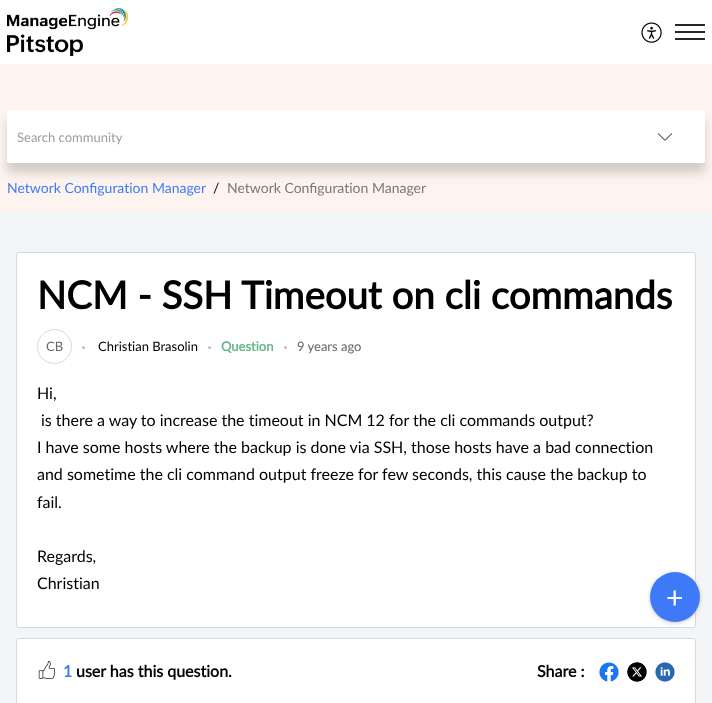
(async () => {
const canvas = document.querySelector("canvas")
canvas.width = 712
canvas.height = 703
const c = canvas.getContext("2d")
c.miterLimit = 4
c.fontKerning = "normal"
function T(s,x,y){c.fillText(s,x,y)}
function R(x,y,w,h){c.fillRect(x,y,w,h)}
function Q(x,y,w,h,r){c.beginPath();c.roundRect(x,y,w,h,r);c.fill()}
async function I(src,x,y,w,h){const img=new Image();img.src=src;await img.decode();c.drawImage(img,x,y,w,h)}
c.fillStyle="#f3f5f7"
R(0,0,712,703)
c.fillStyle="#fff"
R(0,0,712,64)
await I("1.png",7,8,121,48)
await I("2.png",641,22,21,21)
c.fillStyle="#262626"
R(675,31,30,2)
R(675,24,30,2)
R(675,38,30,2)
c.fillStyle="#fdf4ef"
R(0,64,712,148)
c.fillStyle="#00000029"
c.filter="blur(5px)"
c.beginPath()
c.rect(7,120,698,53)
c.fill()
c.filter="none"
c.fillStyle="#fff"
Q(7,110,698,53,3)
Q(7,110,618,53,3)
c.font="13px Lato"
c.fillStyle="#9e9e9e"
T("Search community",17,142)
c.fillStyle="#ffffff80"
c.beginPath()
c.roundRect(625,110,80,53,[0,3,3,0])
c.fill()
await I("3.png",657,133,16,8)
c.fillStyle="#fff"
c.beginPath()
c.roundRect(16.5,252.5,679,375,2.5)
c.fill()
c.strokeStyle="#d4dadf"
c.stroke()
c.fillStyle="#00000033"
c.filter="blur(2px)"
c.beginPath()
c.roundRect(650,573,50,50,25)
c.fill()
c.filter="none"
c.fillStyle="#3e7af7"
c.beginPath()
c.arc(675,597,25,0,7)
c.fill()
c.font="30px Lato"
c.fillStyle="#fff"
T("+",666,608)
c.font="14px Lato"
c.fillStyle="#3e7af7"
T("Network Configuration Manager",7,193)
c.fillStyle="#000"
T("/",213,193)
c.fillStyle="#777"
T("Network Configuration Manager",227,193)
c.font="bold 38.4px Lato"
c.fillStyle="#000"
T("NCM - SSH Timeout on cli commands",37,309)
c.beginPath()
c.arc(54.5,346.5,17,0,7)
c.strokeStyle="#dadada"
c.stroke()
c.font="13px Lato"
c.fillStyle="#666"
T("CB",46,351)
c.fillStyle="#bdbdbd"
c.beginPath()
c.arc(83.5,347.5,1.5,0,7)
c.fill()
c.fillStyle="#000"
T("Christian Brasolin",98,351)
c.fillStyle="#bdbdbd"
c.beginPath()
c.arc(209.5,347.5,1.5,0,7)
c.fill()
c.font="bold 13px Lato"
c.fillStyle="#66b585"
T("Question",221,351)
c.fillStyle="#bdbdbd"
c.beginPath()
c.arc(285.5,347.5,1.5,0,7)
c.fill()
c.font="13px Lato"
c.fillStyle="#666"
T("9 years ago",297,351)
c.font="16px Lato"
c.fillStyle="#000"
T("Hi,",37,399)
T("is there a way to increase the timeout in NCM 12 for the cli commands output?",41,426)
T("I have some hosts where the backup is done via SSH, those hosts have a bad connection",37,453)
T("and sometime the cli command output freeze for few seconds, this cause the backup to",37,480)
T("fail.",37,508)
T("Regards,",37,562)
T("Christian",37,589)
c.fillStyle="#fff"
c.beginPath()
c.roundRect(16,638,680,65,[3,3,0,0])
c.fill()
c.beginPath()
c.roundRect(16.5,638.5,679,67,2.5)
c.strokeStyle="#d4dadf"
c.stroke()
await I("4.png",38,661,18,19)
c.font="bold 16px Lato"
c.fillStyle="#3e7af7"
T("1",63,677)
c.fillStyle="#000"
T("user has this question.",76,677)
T("Share :",537,677)
await I("5.png",599,662,20,20)
await I("6.png",627,662,20,20)
await I("7.png",655,662,20,20)
})()
